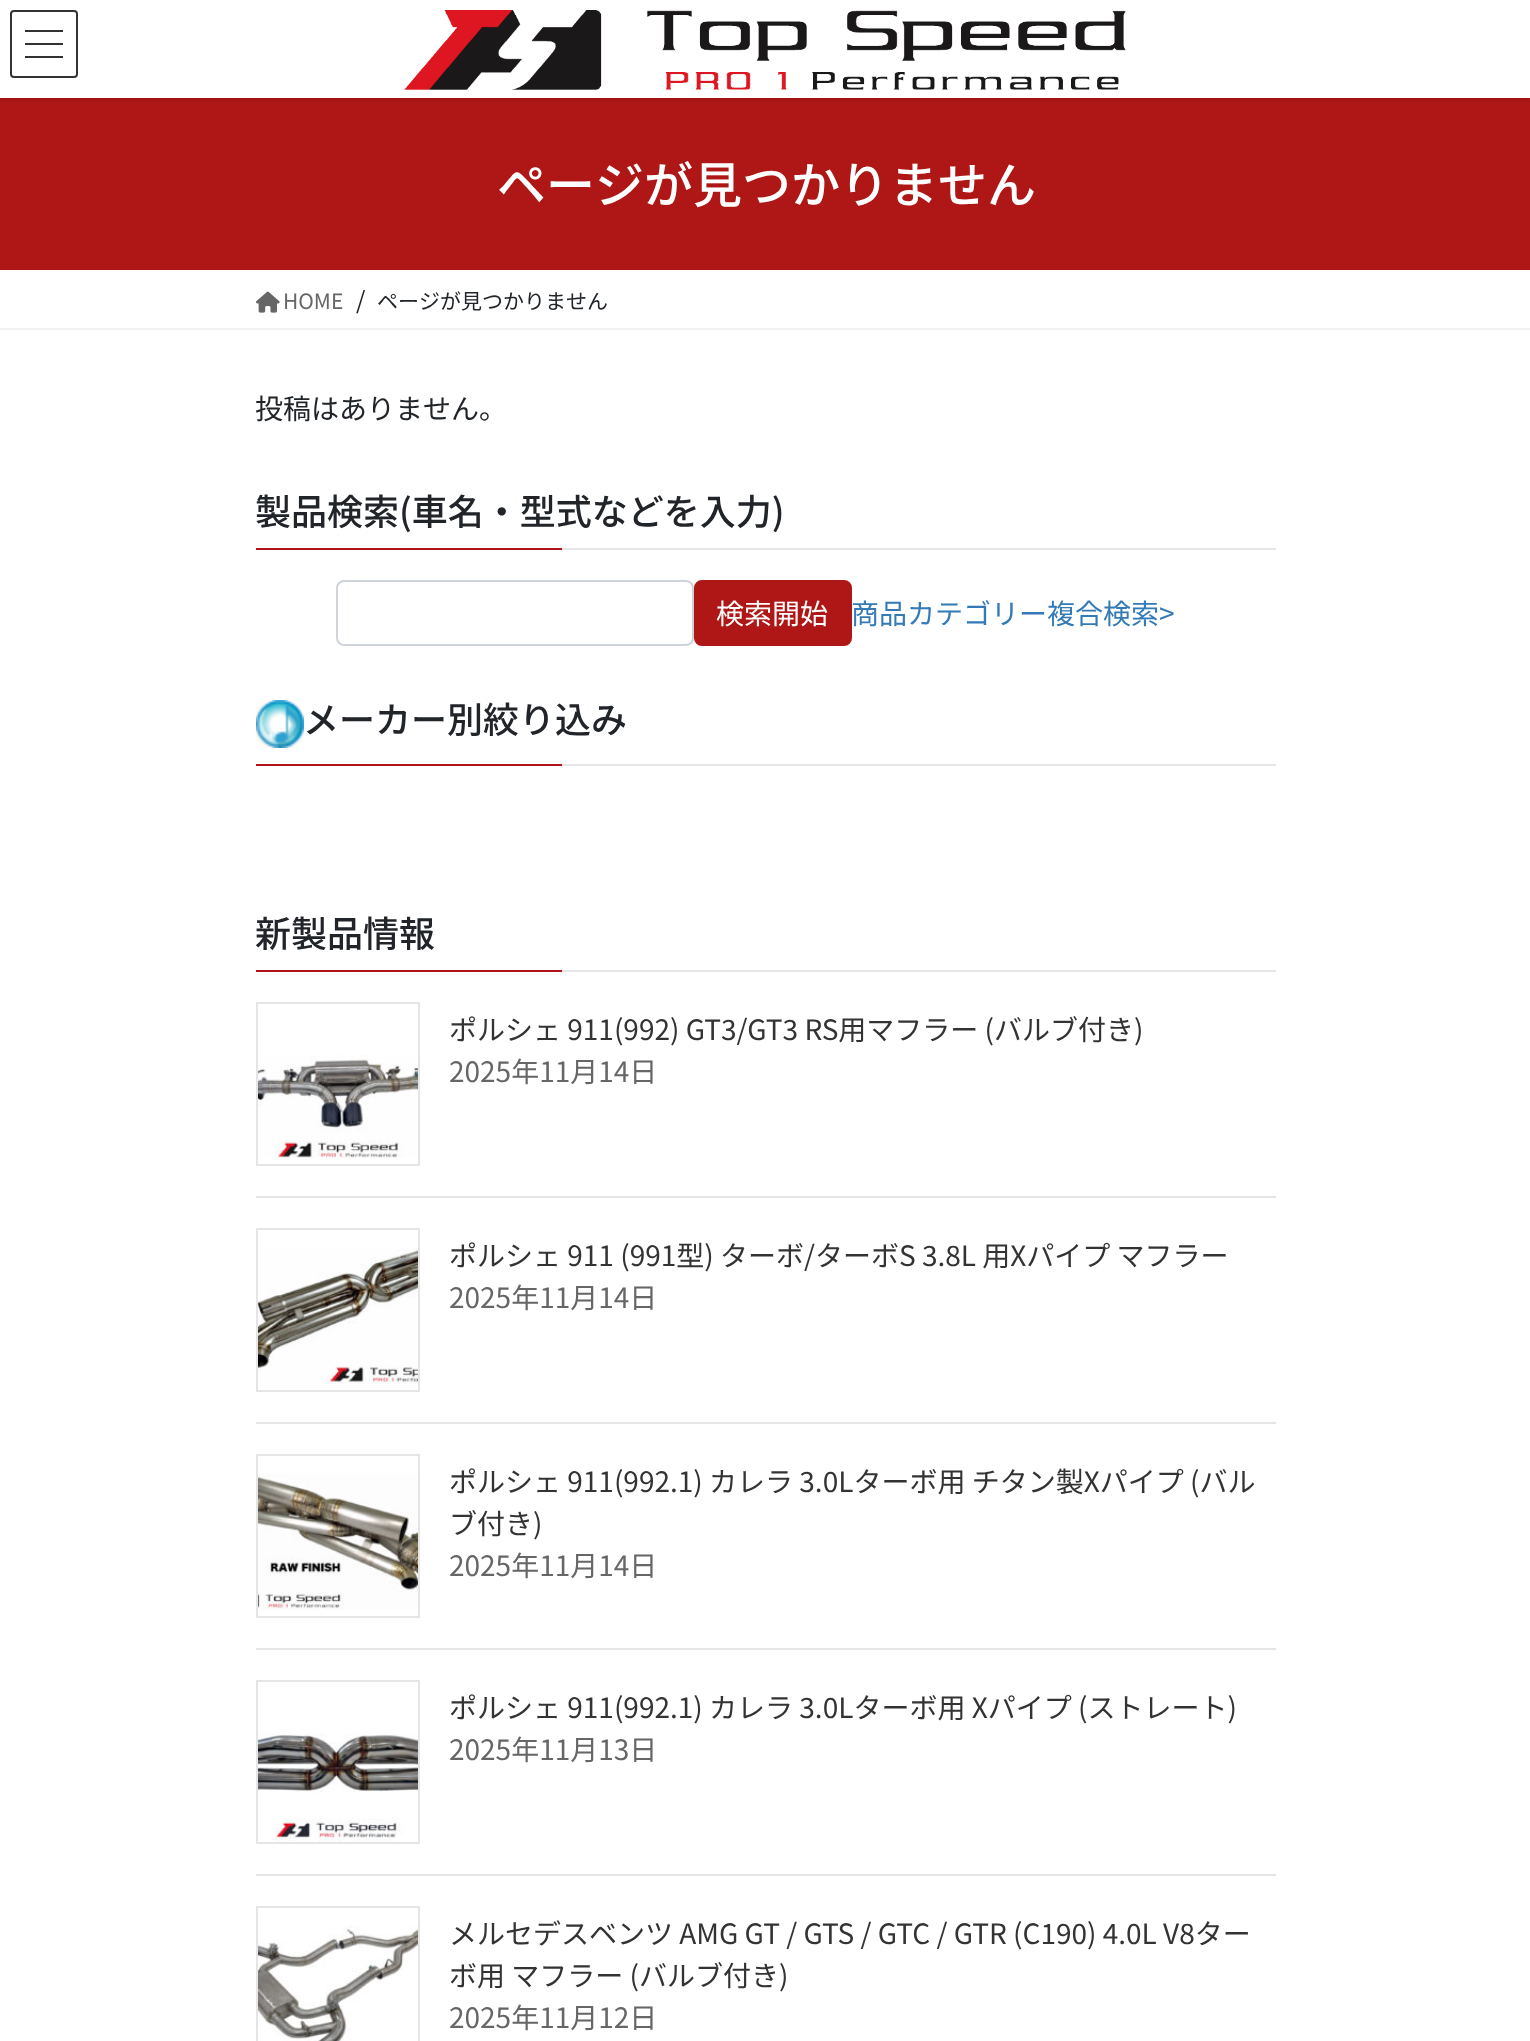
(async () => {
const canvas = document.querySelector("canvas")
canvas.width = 1530
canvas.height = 2041
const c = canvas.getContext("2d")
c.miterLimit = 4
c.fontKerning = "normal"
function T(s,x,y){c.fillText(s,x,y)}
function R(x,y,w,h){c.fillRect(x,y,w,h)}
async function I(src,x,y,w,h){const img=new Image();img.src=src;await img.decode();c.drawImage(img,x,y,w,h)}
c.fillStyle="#fff"
R(0,0,1530,2041)
c.fillStyle="#af1616"
R(0,98,1530,172)
c.save()
c.beginPath()
c.rect(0,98,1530,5)
c.clip()
c.fillStyle="#0000001a"
c.filter="blur(3px)"
c.beginPath()
c.rect(0,2,1530,98)
c.fill()
c.filter="none"
c.restore()
await I("1.png",404,10,722,80)
c.fillStyle="#333"
R(25,30,38,2)
R(25,43,38,2)
R(25,56,38,2)
c.beginPath()
c.roundRect(11,11,66,66,3)
c.strokeStyle="#333"
c.lineWidth=2
c.stroke()
c.font="500 49px Noto Sans JP"
c.fillStyle="#fff"
T("ページが見つかりません",497,203)
c.fillStyle="#f2f2f2"
R(0,328,1530,2)
await I("2.png",256,291,24,22)
c.font="21px Noto Sans JP"
c.fillStyle="#666"
T("HOME",283,309)
c.font="24px Noto Sans JP"
c.fillStyle="#212529"
T("/",356,309)
c.font="21px Noto Sans JP"
T("ページが見つかりません",377,309)
c.font="28px Noto Sans JP"
T("投稿はありません。",255,419)
c.fillStyle="#e6e6e6"
R(562,548,714,2)
c.font="500 36px Noto Sans JP"
c.fillStyle="#212529"
T("製品検索(車名・型式などを入力)",255,525)
c.fillStyle="#af1616"
R(256,548,306,2)
c.beginPath()
c.roundRect(337,581,356,64,7)
c.strokeStyle="#ced4da"
c.stroke()
c.beginPath()
c.roundRect(695,581,156,64,7)
c.fill()
c.strokeStyle="#af1616"
c.stroke()
c.font="28px Noto Sans JP"
c.fillStyle="#fff"
T("検索開始",716,624)
c.fillStyle="#337ab7"
T("商品カテゴリー複合検索>",851,624)
c.fillStyle="#e6e6e6"
R(562,764,714,2)
await I("3.png",256,700,48,48)
c.font="500 36px Noto Sans JP"
c.fillStyle="#212529"
T("メーカー別絞り込み",303,733)
c.fillStyle="#af1616"
R(256,764,306,2)
c.fillStyle="#e6e6e6"
R(562,970,714,2)
c.fillStyle="#212529"
T("新製品情報",255,947)
c.fillStyle="#af1616"
R(256,970,306,2)
c.fillStyle="#e5e5e5"
R(256,1196,1020,2)
c.strokeStyle="#e5e5e5"
c.strokeRect(257,1003,162,162)
await I("4.png",258,1055,160,103)
c.font="28px Noto Sans JP"
c.fillStyle="#333"
T("ポルシェ 911(992) GT3/GT3 RS用マフラー (バルブ付き)",449,1040)
c.fillStyle="#666"
T("2025年11月14日",449,1082)
c.fillStyle="#e5e5e5"
R(256,1422,1020,2)
c.strokeRect(257,1229,162,162)
await I("5.png",258,1248,160,136)
c.fillStyle="#333"
T("ポルシェ 911 (991型) ターボ/ターボS 3.8L 用Xパイプ マフラー",449,1266)
c.fillStyle="#666"
T("2025年11月14日",449,1308)
c.fillStyle="#e5e5e5"
R(256,1648,1020,2)
c.strokeRect(257,1455,162,162)
await I("6.png",258,1473,160,137)
c.fillStyle="#333"
T("ポルシェ 911(992.1) カレラ 3.0Lターボ用 チタン製Xパイプ (バル",449,1492)
T("ブ付き)",449,1534)
c.fillStyle="#666"
T("2025年11月14日",449,1576)
c.fillStyle="#e5e5e5"
R(256,1874,1020,2)
c.strokeRect(257,1681,162,162)
await I("7.png",258,1733,160,109)
c.fillStyle="#333"
T("ポルシェ 911(992.1) カレラ 3.0Lターボ用 Xパイプ (ストレート)",449,1718)
c.fillStyle="#666"
T("2025年11月13日",449,1760)
c.strokeRect(257,1907,162,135)
await I("8.png",258,1925,160,116)
c.fillStyle="#333"
T("メルセデスベンツ AMG GT / GTS / GTC / GTR (C190) 4.0L V8ター",449,1944)
T("ボ用 マフラー (バルブ付き)",449,1986)
c.fillStyle="#666"
T("2025年11月12日",449,2028)
})()
